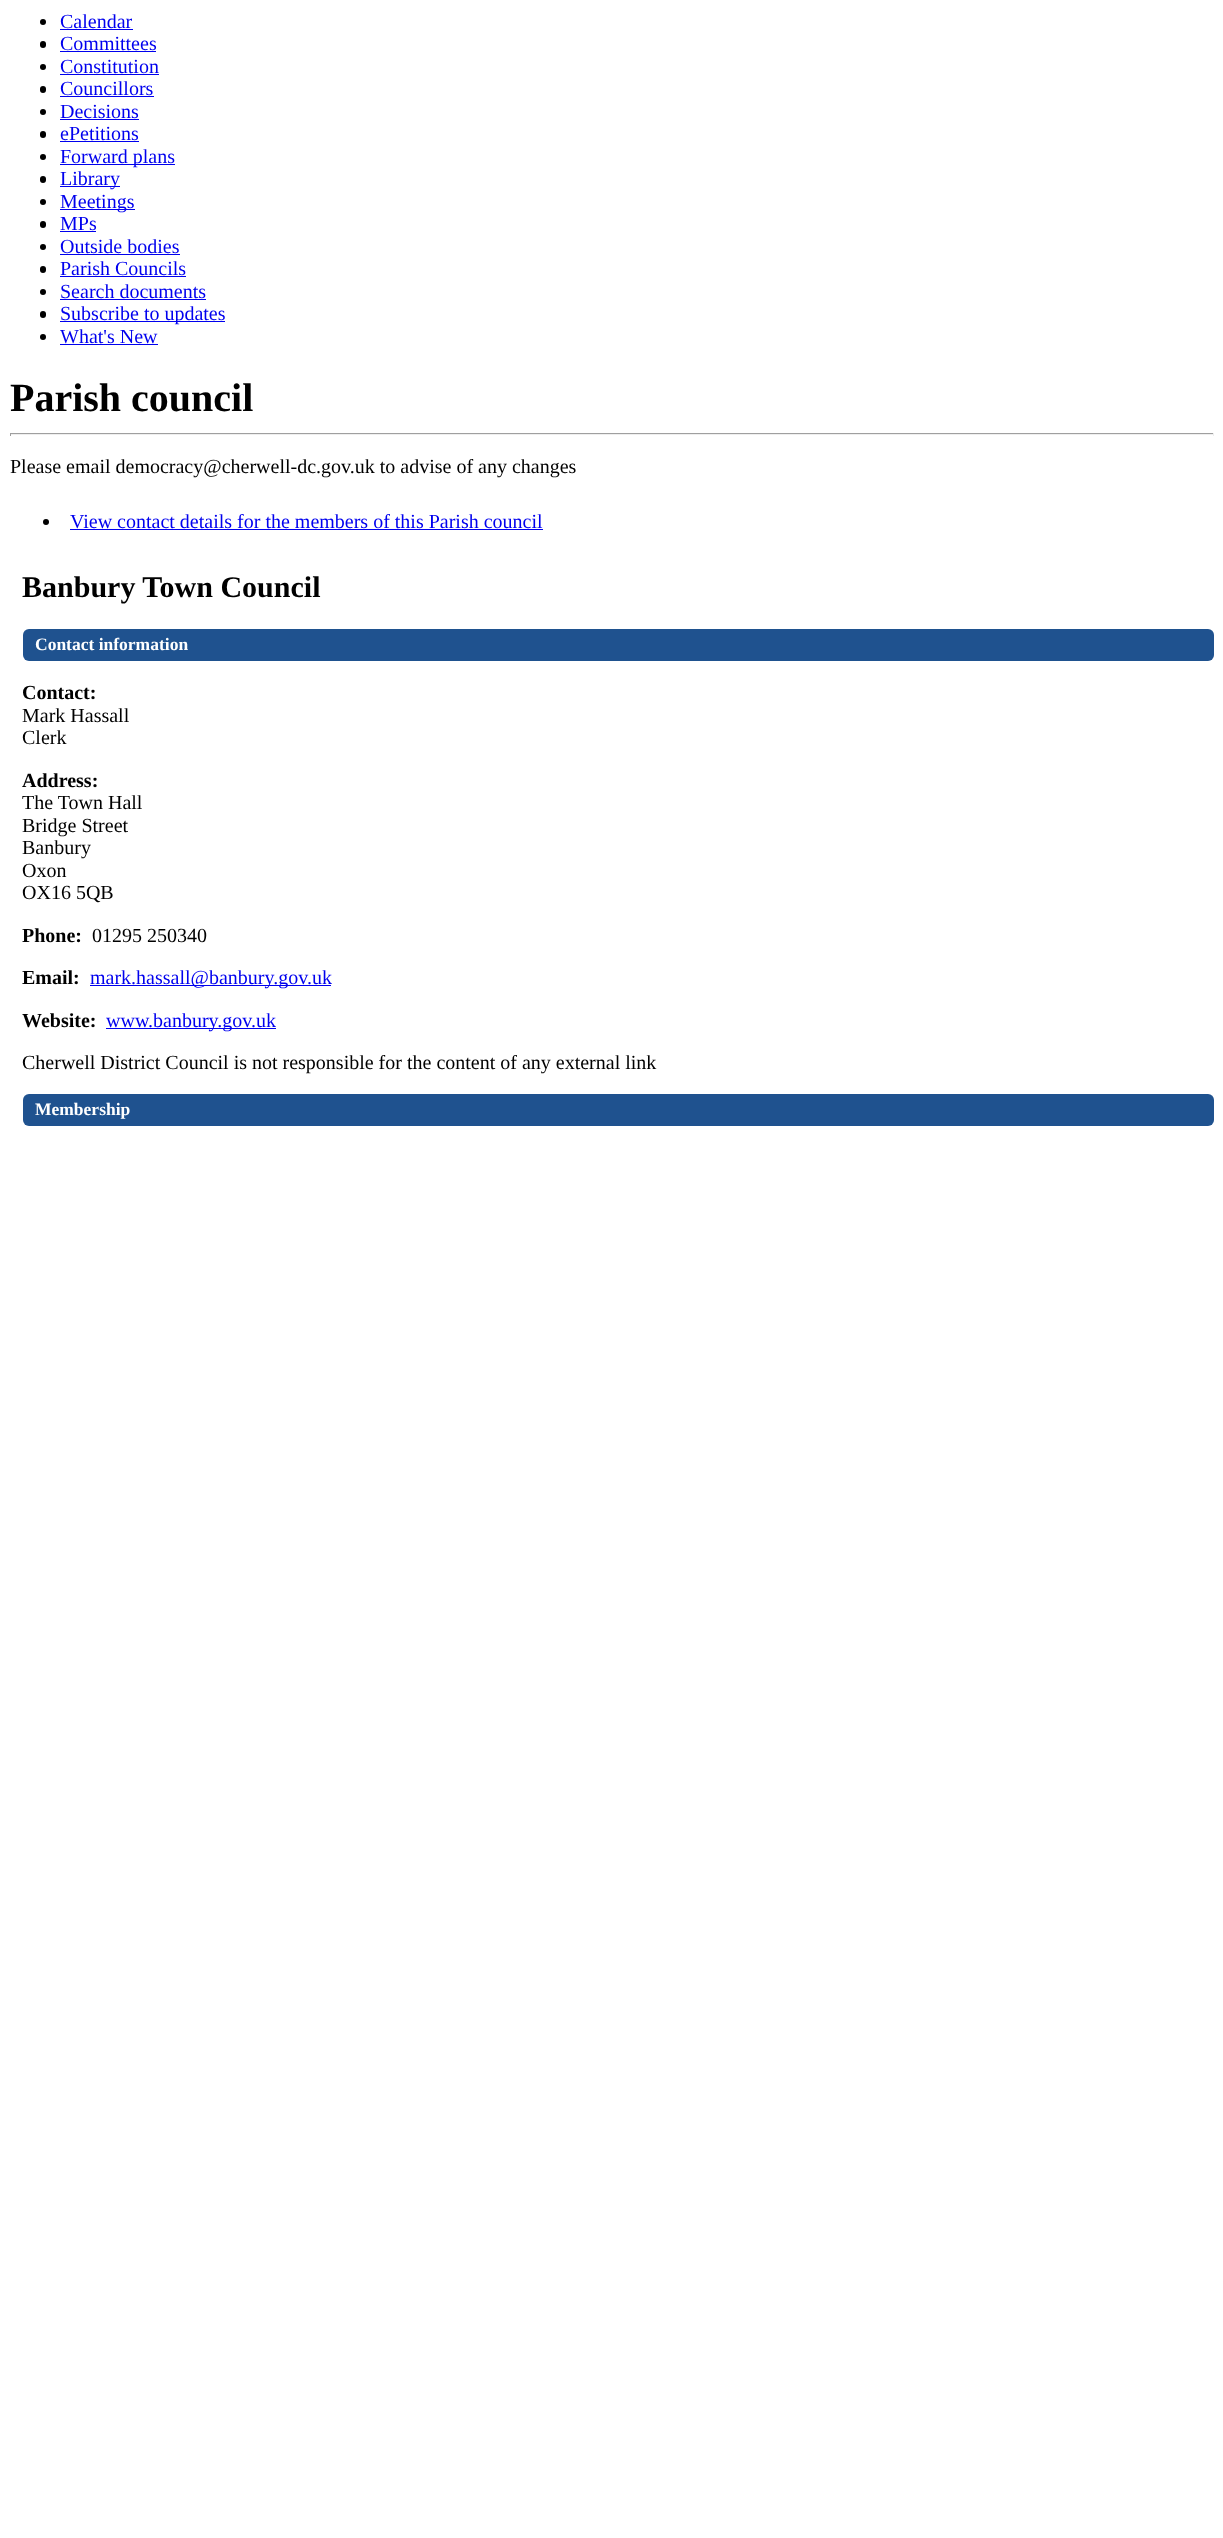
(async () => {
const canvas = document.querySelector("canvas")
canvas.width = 1223
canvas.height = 2538
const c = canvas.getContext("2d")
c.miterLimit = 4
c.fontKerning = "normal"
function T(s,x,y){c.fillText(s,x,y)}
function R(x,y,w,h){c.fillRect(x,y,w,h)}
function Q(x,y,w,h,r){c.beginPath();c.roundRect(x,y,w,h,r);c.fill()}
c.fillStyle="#fff"
R(0,0,1223,2538)
c.fillStyle="#000"
c.beginPath()
c.arc(43,22,3,0,7)
c.fill()
c.font="20px Liberation Serif"
c.fillStyle="#00e"
T("Calendar",60,28)
R(60,29,73,1)
c.fillStyle="#000"
Q(40,41,6,7,3)
c.fillStyle="#00e"
T("Committees",60,50)
R(60,51,96,1)
c.fillStyle="#000"
c.beginPath()
c.arc(43,67,3,0,7)
c.fill()
c.fillStyle="#00e"
T("Constitution",60,73)
R(60,74,99,1)
c.fillStyle="#000"
Q(40,86,6,7,3)
c.fillStyle="#00e"
T("Councillors",60,95)
R(60,96,94,1)
c.fillStyle="#000"
c.beginPath()
c.arc(43,112,3,0,7)
c.fill()
c.fillStyle="#00e"
T("Decisions",60,118)
R(60,119,79,1)
c.fillStyle="#000"
Q(40,131,6,7,3)
c.fillStyle="#00e"
T("ePetitions",60,140)
R(60,141,79,1)
c.fillStyle="#000"
c.beginPath()
c.arc(43,157,3,0,7)
c.fill()
c.fillStyle="#00e"
R(60,164,115,1)
T("Forward plans",60,163)
c.fillStyle="#000"
Q(40,176,6,7,3)
c.fillStyle="#00e"
R(60,186,60,1)
T("Library",60,185)
c.fillStyle="#000"
c.beginPath()
c.arc(43,202,3,0,7)
c.fill()
c.fillStyle="#00e"
R(60,209,75,1)
T("Meetings",60,208)
c.fillStyle="#000"
Q(40,221,6,7,3)
c.fillStyle="#00e"
T("MPs",60,230)
R(60,231,36,1)
c.fillStyle="#000"
c.beginPath()
c.arc(43,247,3,0,7)
c.fill()
c.fillStyle="#00e"
T("Outside bodies",60,253)
R(60,254,120,1)
c.fillStyle="#000"
Q(40,266,6,7,3)
c.fillStyle="#00e"
T("Parish Councils",60,275)
R(60,276,126,1)
c.fillStyle="#000"
c.beginPath()
c.arc(43,292,3,0,7)
c.fill()
c.fillStyle="#00e"
T("Search documents",60,298)
R(60,299,146,1)
c.fillStyle="#000"
Q(40,311,6,7,3)
c.fillStyle="#00e"
R(60,321,165,1)
T("Subscribe to updates",60,320)
c.fillStyle="#000"
c.beginPath()
c.arc(43,337,3,0,7)
c.fill()
c.fillStyle="#00e"
T("What's New",60,343)
R(60,344,98,1)
c.font="bold 40px Liberation Serif"
c.fillStyle="#000"
T("Parish council",10,411)
c.fillStyle="#9f9f9f"
R(10,433,1204,1)
c.fillStyle="#eee"
R(1213,433,1,3)
R(10,434,1204,1)
c.fillStyle="#9f9f9f"
R(10,433,1,3)
c.font="20px Liberation Serif"
c.fillStyle="#000"
T("Please email democracy@cherwell-dc.gov.uk to advise of any changes",10,473)
c.beginPath()
c.arc(46,522,3,0,7)
c.fill()
c.fillStyle="#00e"
T("View contact details for the members of this Parish council",70,528)
R(70,529,473,1)
c.font="bold 30px Liberation Serif"
c.fillStyle="#000"
T("Banbury Town Council",22,597)
c.fillStyle="#1f528f"
Q(23,629,1191,32,6)
c.font="bold 17.5px Liberation Serif"
c.fillStyle="#fff"
T("Contact information",35,650)
c.font="bold 20px Liberation Serif"
c.fillStyle="#000"
T("Contact:",22,699)
c.font="20px Liberation Serif"
T("Mark Hassall",22,722)
T("Clerk",22,744)
c.font="bold 20px Liberation Serif"
T("Address:",22,787)
c.font="20px Liberation Serif"
T("The Town Hall",22,809)
T("Bridge Street",22,832)
T("Banbury",22,854)
T("Oxon",22,877)
T("OX16 5QB",22,899)
c.font="bold 20px Liberation Serif"
T("Phone:",22,942)
c.font="20px Liberation Serif"
T("01295 250340",92,942)
c.font="bold 20px Liberation Serif"
T("Email:",22,984)
c.fillStyle="#00e"
R(90,985,241,1)
c.font="20px Liberation Serif"
T("mark.hassall@banbury.gov.uk",90,984)
c.font="bold 20px Liberation Serif"
c.fillStyle="#000"
T("Website:",22,1027)
c.fillStyle="#00e"
R(106,1028,170,1)
c.font="20px Liberation Serif"
T("www.banbury.gov.uk",106,1027)
c.fillStyle="#000"
T("Cherwell District Council is not responsible for the content of any external link",22,1069)
c.fillStyle="#1f528f"
Q(23,1094,1191,32,6)
c.font="bold 17.5px Liberation Serif"
c.fillStyle="#fff"
T("Membership",35,1115)
})()
